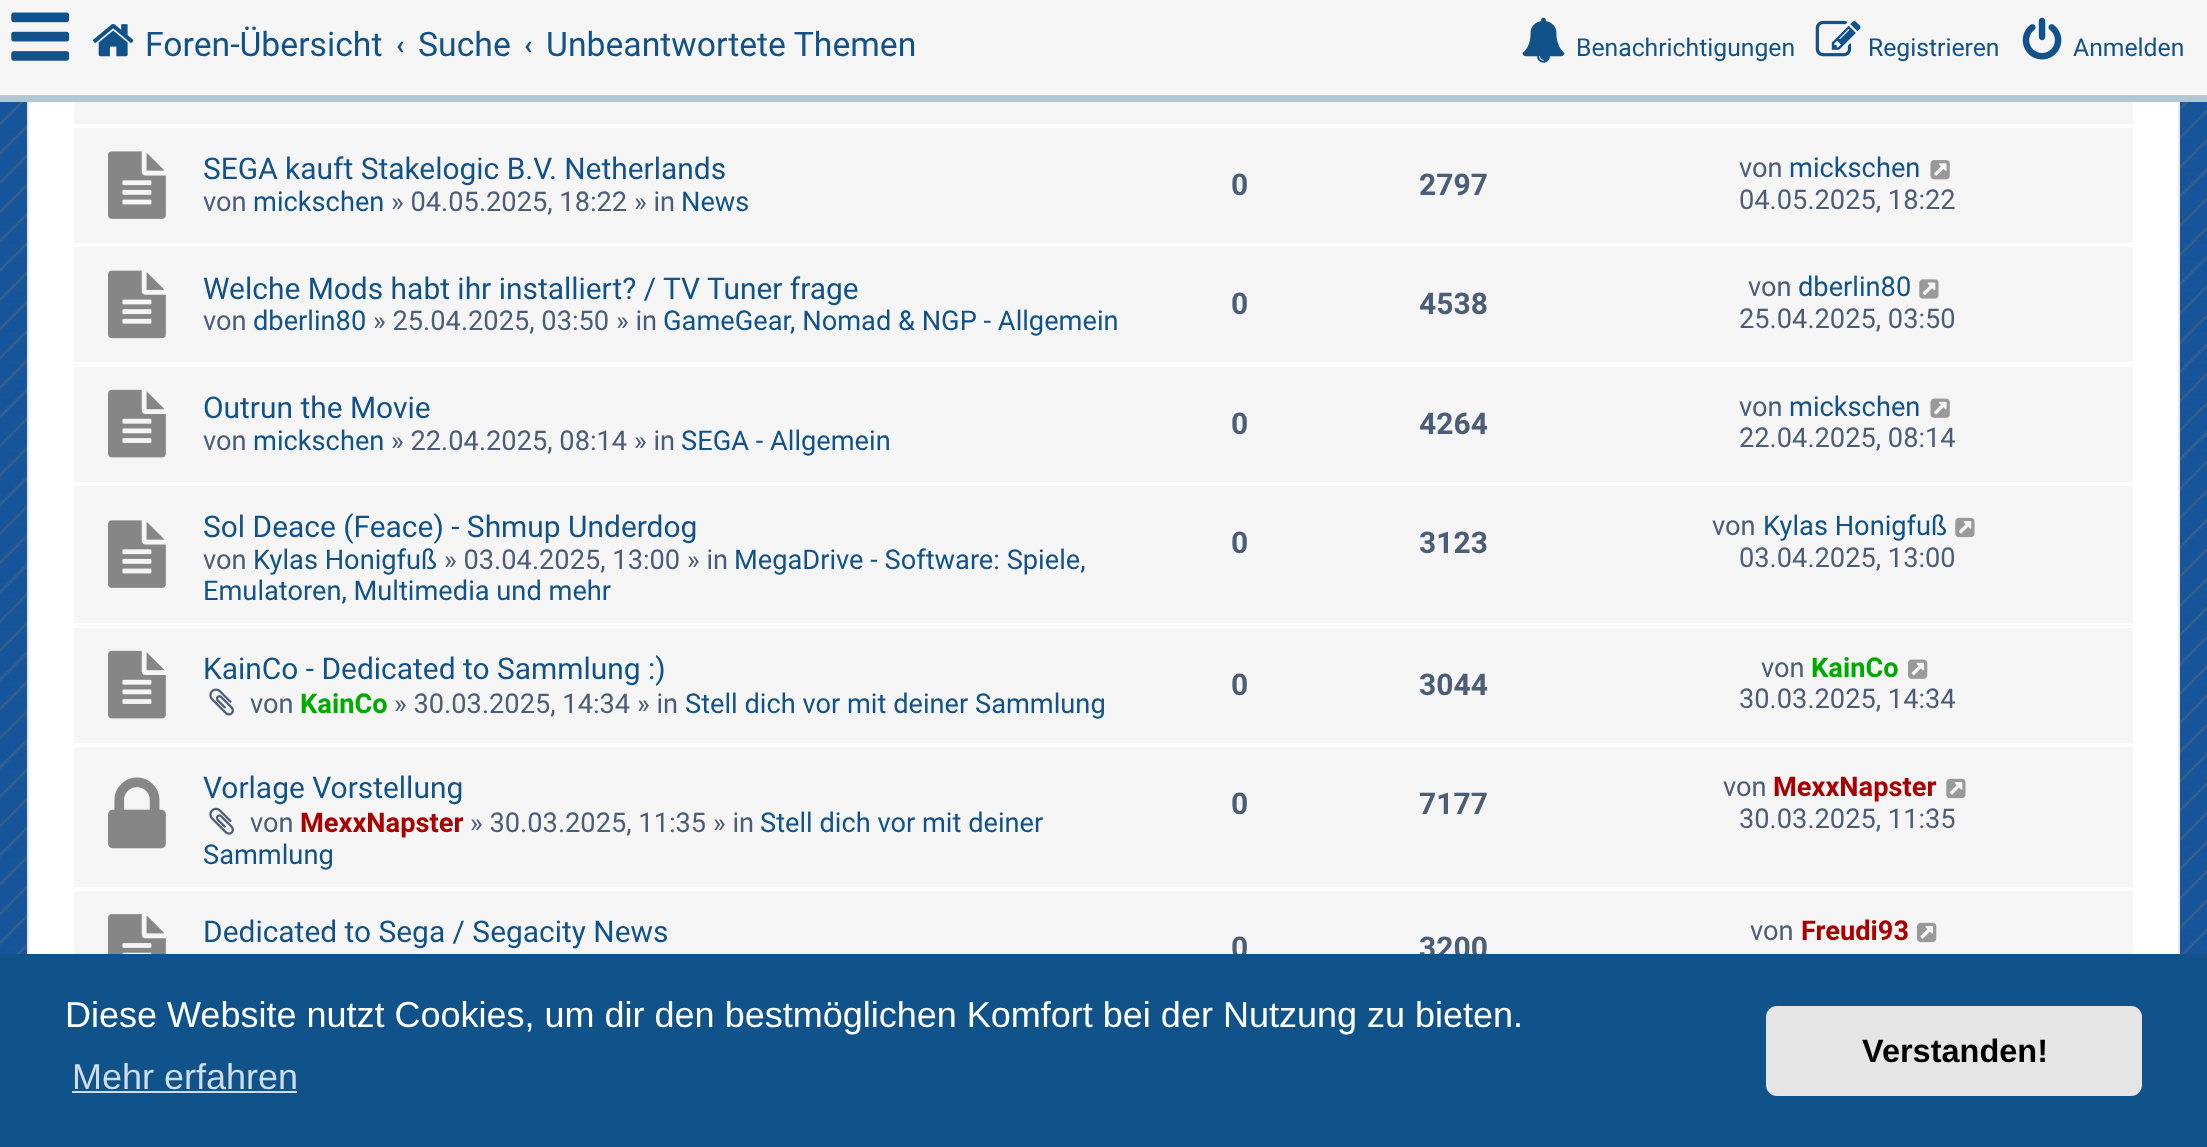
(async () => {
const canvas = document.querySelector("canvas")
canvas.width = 2207
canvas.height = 1147
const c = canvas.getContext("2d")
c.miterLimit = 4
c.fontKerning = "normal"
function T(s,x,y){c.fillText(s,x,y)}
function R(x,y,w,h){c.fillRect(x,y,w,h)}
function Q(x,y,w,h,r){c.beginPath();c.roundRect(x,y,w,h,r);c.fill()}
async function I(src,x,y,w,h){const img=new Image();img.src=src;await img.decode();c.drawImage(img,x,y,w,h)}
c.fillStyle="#fff"
R(0,0,2207,1147)
await I("1.png",0,102,2207,852)
R(29,102,2149,852)
c.strokeStyle="#e6e9ed"
c.lineWidth=2
c.strokeRect(28,-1,2151,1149)
c.fillStyle="#f5f5f5"
R(0,0,2207,95)
c.fillStyle="#b0c8d4"
R(0,95,2207,7)
await I("2.png",11,12,59,49)
await I("3.png",92,24,42,33)
c.font="33.75px Roboto"
c.fillStyle="#105289"
T("Foren-Übersicht",145,56)
c.font="bold 27.25px Roboto"
T("‹",396,54)
c.font="33.75px Roboto"
T("Suche",418,56)
c.font="bold 27.25px Roboto"
T("‹",524,54)
c.font="33.75px Roboto"
T("Unbeantwortete Themen",546,56)
await I("4.png",1522,17,43,46)
c.font="24.75px Roboto"
T("Benachrichtigungen",1576,56)
await I("5.png",1815,20,46,37)
T("Registrieren",1868,56)
await I("6.png",2022,17,40,43)
T("Anmelden",2073,56)
c.fillStyle="#f5f5f5"
R(74,102,2059,22)
R(74,128,2059,115)
await I("7.png",108,151,58,68)
c.font="29.95px Roboto"
c.fillStyle="#105289"
T("SEGA kauft Stakelogic B.V. Netherlands",203,179)
c.font="27.25px Roboto"
c.fillStyle="#4c5d77"
T("von",203,211)
c.fillStyle="#105289"
T("mickschen",253,211)
c.fillStyle="#4c5d77"
T("» 04.05.2025, 18:22 » in",391,211)
c.fillStyle="#105289"
T("News",681,211)
c.font="bold 30px Roboto"
c.fillStyle="#4c5d77"
T("0",1231,195)
T("2797",1419,195)
c.font="27.25px Roboto"
T("von",1739,177)
c.fillStyle="#105289"
T("mickschen",1789,177)
await I("8.png",1930,160,20,20)
c.fillStyle="#4c5d77"
T("04.05.2025, 18:22",1739,209)
c.fillStyle="#f5f5f5"
R(74,247,2059,118)
c.fillStyle="#fff"
R(74,362,2059,2)
await I("9.png",108,270,58,69)
c.font="29.95px Roboto"
c.fillStyle="#105289"
T("Welche Mods habt ihr installiert? / TV Tuner frage",203,299)
c.font="27.25px Roboto"
c.fillStyle="#4c5d77"
T("von",203,330)
c.fillStyle="#105289"
T("dberlin80",253,330)
c.fillStyle="#4c5d77"
T("» 25.04.2025, 03:50 » in",373,330)
c.fillStyle="#105289"
T("GameGear, Nomad & NGP - Allgemein",663,330)
c.font="bold 30px Roboto"
c.fillStyle="#4c5d77"
T("0",1231,314)
T("4538",1419,314)
c.font="27.25px Roboto"
T("von",1748,296)
c.fillStyle="#105289"
T("dberlin80",1798,296)
await I("10.png",1919,279,20,20)
c.fillStyle="#4c5d77"
T("25.04.2025, 03:50",1739,328)
c.fillStyle="#f5f5f5"
R(74,367,2059,115)
await I("11.png",108,389,58,69)
c.font="29.95px Roboto"
c.fillStyle="#105289"
T("Outrun the Movie",203,418)
c.font="27.25px Roboto"
c.fillStyle="#4c5d77"
T("von",203,450)
c.fillStyle="#105289"
T("mickschen",253,450)
c.fillStyle="#4c5d77"
T("» 22.04.2025, 08:14 » in",391,450)
c.fillStyle="#105289"
T("SEGA - Allgemein",681,450)
c.font="bold 30px Roboto"
c.fillStyle="#4c5d77"
T("0",1231,434)
T("4264",1419,434)
c.font="27.25px Roboto"
T("von",1739,416)
c.fillStyle="#105289"
T("mickschen",1789,416)
await I("12.png",1930,398,20,20)
c.fillStyle="#4c5d77"
T("22.04.2025, 08:14",1739,447)
c.fillStyle="#f5f5f5"
R(74,486,2059,140)
c.fillStyle="#fff"
R(74,623,2059,2)
await I("7.png",108,520,58,68)
c.font="29.95px Roboto"
c.fillStyle="#105289"
T("Sol Deace (Feace) - Shmup Underdog",203,537)
c.font="27.25px Roboto"
c.fillStyle="#4c5d77"
T("von",203,569)
c.fillStyle="#105289"
T("Kylas Honigfuß",253,569)
c.fillStyle="#4c5d77"
T("» 03.04.2025, 13:00 » in",444,569)
c.fillStyle="#105289"
T("MegaDrive - Software: Spiele,",734,569)
T("Emulatoren, Multimedia und mehr",203,600)
c.font="bold 30px Roboto"
c.fillStyle="#4c5d77"
T("0",1231,553)
T("3123",1419,553)
c.font="27.25px Roboto"
T("von",1712,535)
c.fillStyle="#105289"
T("Kylas Honigfuß",1763,535)
await I("13.png",1955,517,20,21)
c.fillStyle="#4c5d77"
T("03.04.2025, 13:00",1739,567)
c.fillStyle="#f5f5f5"
R(74,628,2059,115)
await I("11.png",108,650,58,69)
c.font="29.95px Roboto"
c.fillStyle="#105289"
T("KainCo - Dedicated to Sammlung :)",203,679)
await I("14.png",209,688,25,28)
c.font="27.25px Roboto"
c.fillStyle="#4c5d77"
T("von",250,713)
c.font="bold 27.25px Roboto"
c.fillStyle="#0a0"
T("KainCo",300,713)
c.font="27.25px Roboto"
c.fillStyle="#4c5d77"
T("» 30.03.2025, 14:34 » in",394,713)
c.fillStyle="#105289"
T("Stell dich vor mit deiner Sammlung",685,713)
c.font="bold 30px Roboto"
c.fillStyle="#4c5d77"
T("0",1231,695)
T("3044",1419,695)
c.font="27.25px Roboto"
T("von",1761,677)
c.font="bold 27.25px Roboto"
c.fillStyle="#0a0"
T("KainCo",1811,677)
await I("15.png",1908,659,20,20)
c.font="27.25px Roboto"
c.fillStyle="#4c5d77"
T("30.03.2025, 14:34",1739,708)
c.fillStyle="#f5f5f5"
R(74,747,2059,140)
await I("16.png",108,777,58,72)
c.font="29.95px Roboto"
c.fillStyle="#105289"
T("Vorlage Vorstellung",203,798)
await I("17.png",209,807,25,28)
c.font="27.25px Roboto"
c.fillStyle="#4c5d77"
T("von",250,832)
c.font="bold 27.25px Roboto"
c.fillStyle="#a00"
T("MexxNapster",300,832)
c.font="27.25px Roboto"
c.fillStyle="#4c5d77"
T("» 30.03.2025, 11:35 » in",470,832)
c.fillStyle="#105289"
T("Stell dich vor mit deiner",760,832)
T("Sammlung",203,864)
c.font="bold 30px Roboto"
c.fillStyle="#4c5d77"
T("0",1231,814)
T("7177",1419,814)
c.font="27.25px Roboto"
T("von",1723,796)
c.font="bold 27.25px Roboto"
c.fillStyle="#a00"
T("MexxNapster",1773,796)
await I("13.png",1946,778,20,21)
c.font="27.25px Roboto"
c.fillStyle="#4c5d77"
T("30.03.2025, 11:35",1739,828)
c.fillStyle="#f5f5f5"
R(74,891,2059,63)
await I("18.png",108,914,58,40)
c.font="29.95px Roboto"
c.fillStyle="#105289"
T("Dedicated to Sega / Segacity News",203,942)
c.font="27.25px Roboto"
c.fillStyle="#4c5d77"
T("von",1750,940)
c.font="bold 27.25px Roboto"
c.fillStyle="#a00"
T("Freudi93",1801,940)
await I("19.png",1917,922,20,21)
c.font="bold 30px Roboto"
c.fillStyle="#4c5d77"
T("0",1231,958)
T("3200",1419,958)
c.fillStyle="#0f538a"
R(0,954,2207,193)
c.font="36px Liberation Sans"
c.fillStyle="#fff"
T("Diese Website nutzt Cookies, um dir den bestmöglichen Komfort bei der Nutzung zu bieten.",65,1027)
c.fillStyle="#cfdde8"
T("Mehr erfahren",72,1089)
R(72,1091,225,2)
c.fillStyle="#e5e5e5"
Q(1766,1006,376,90,11)
c.font="bold 32.5px Liberation Sans"
c.fillStyle="#000"
T("Verstanden!",1862,1062)
})()
